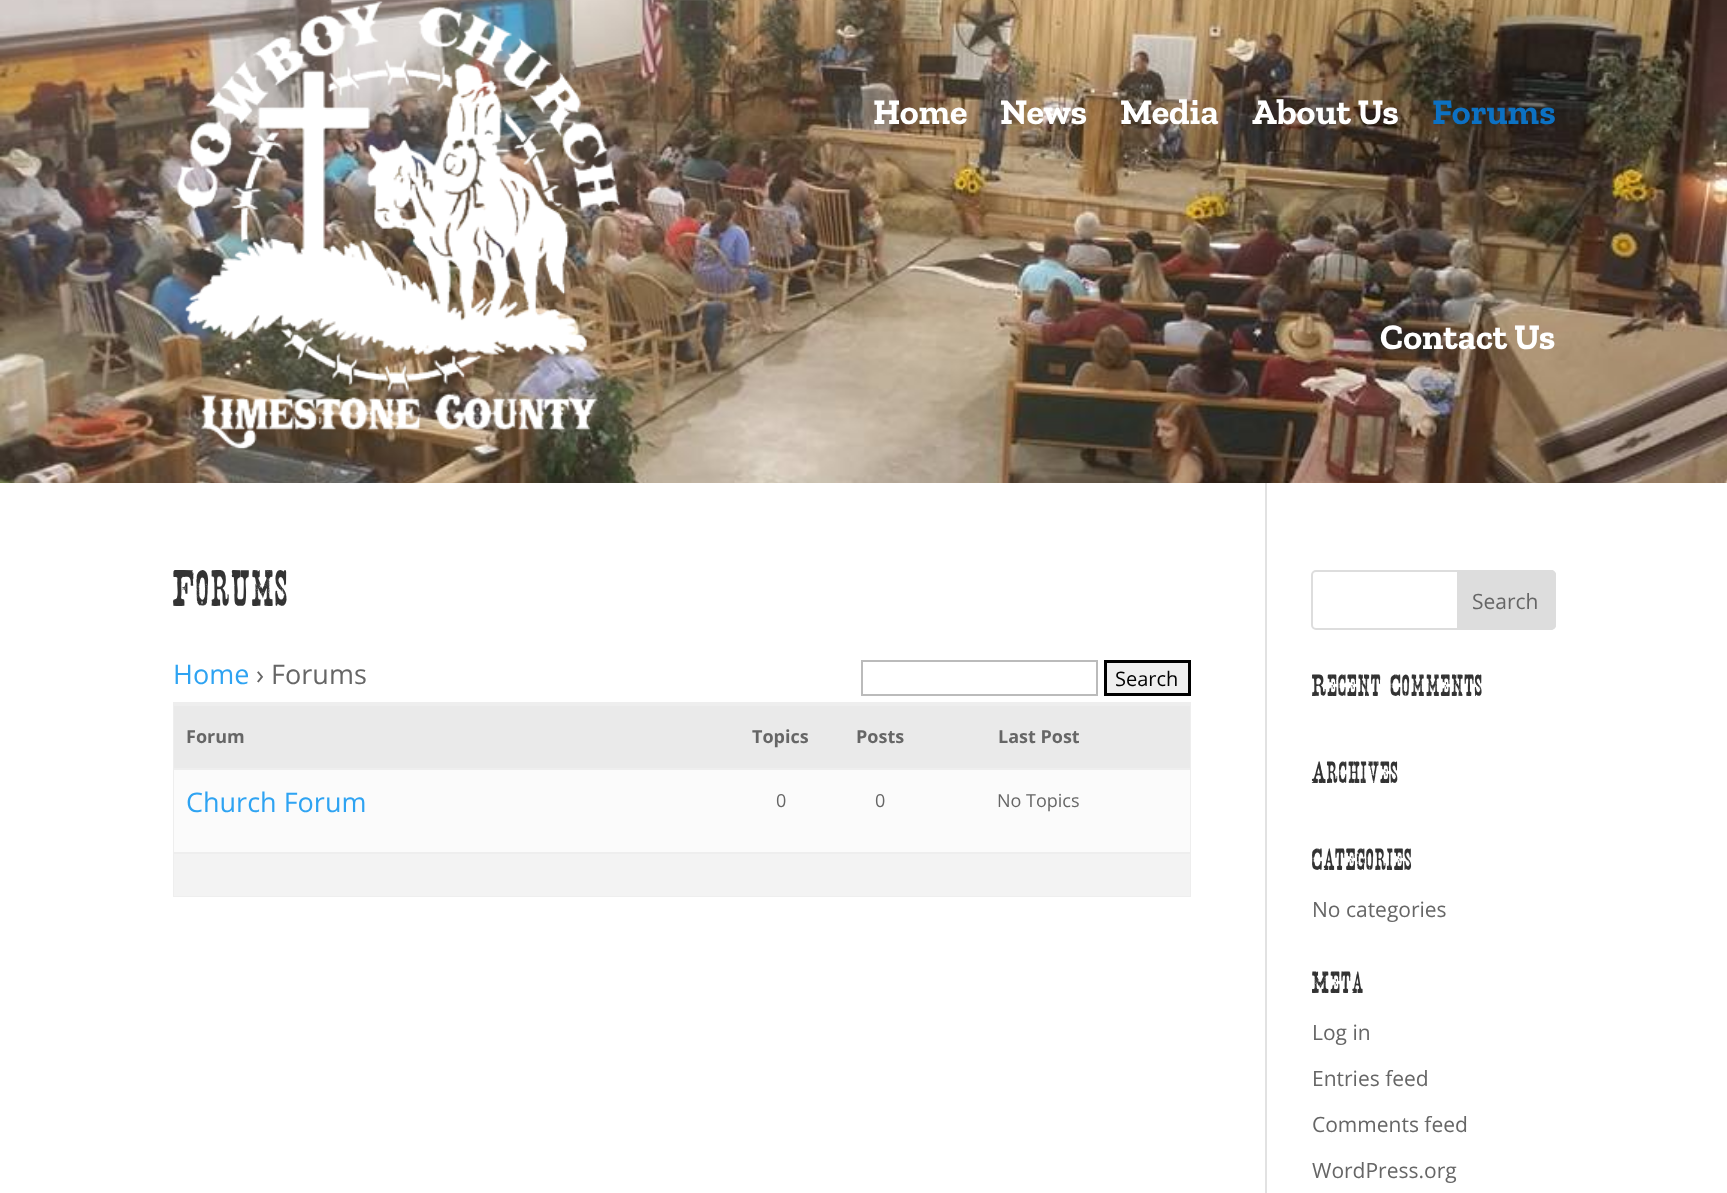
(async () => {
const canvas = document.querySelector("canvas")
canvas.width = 1727
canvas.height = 1193
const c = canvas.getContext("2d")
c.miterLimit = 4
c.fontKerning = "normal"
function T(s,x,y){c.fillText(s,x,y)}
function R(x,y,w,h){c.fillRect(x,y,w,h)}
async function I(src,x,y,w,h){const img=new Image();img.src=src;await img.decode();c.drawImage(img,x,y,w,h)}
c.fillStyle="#fff"
R(0,0,1727,1193)
await I("1.png",0,0,1727,483)
await I("2.png",176,1,444,448)
c.font="bold 36px Zilla Slab"
T("Home",873,124)
T("News",1000,124)
T("Media",1120,124)
T("About Us",1252,124)
c.fillStyle="#0c71c3"
T("Forums",1432,124)
c.fillStyle="#fff"
T("Contact Us",1380,349)
c.fillStyle="#e2e2e2"
R(1265,483,2,710)
c.font="45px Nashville"
c.fillStyle="#333"
T("Forums",173,606)
c.font="27px Open Sans"
c.fillStyle="#2ea3f2"
T("Home",173,684)
c.fillStyle="#666"
T("› Forums",256,684)
c.strokeStyle="#bbb"
c.lineWidth=2
c.strokeRect(862,661,235,34)
c.fillStyle="#efefef"
c.beginPath()
c.rect(1105.5,661.5,84,33)
c.fill()
c.strokeStyle="#000"
c.lineWidth=3
c.stroke()
c.font="20px Open Sans"
c.fillStyle="#000"
T("Search",1115,686)
c.strokeStyle="#eee"
c.lineWidth=2
c.strokeRect(174,703,1016,193)
c.fillStyle="#eaeaea"
R(174,706,1016,62)
c.fillStyle="#eee"
R(174,704,1016,2)
c.font="bold 18px Open Sans"
c.fillStyle="#666"
T("Forum",186,743)
T("Topics",752,743)
T("Posts",856,743)
T("Last Post",998,743)
c.fillStyle="#fbfbfb"
R(174,770,1016,82)
c.fillStyle="#eee"
R(174,768,1016,2)
c.font="27px Open Sans"
c.fillStyle="#2ea3f2"
T("Church Forum",186,812)
c.font="18px Open Sans"
c.fillStyle="#666"
T("0",776,807)
T("0",875,807)
T("No Topics",997,807)
c.fillStyle="#f3f3f3"
R(174,854,1016,42)
c.fillStyle="#eee"
R(174,852,1016,2)
c.beginPath()
c.roundRect(1312,571,243,58,4)
c.strokeStyle="#ddd"
c.stroke()
c.fillStyle="#ddd"
c.beginPath()
c.roundRect(1458,571,97,58,[0,4,4,0])
c.fill()
c.stroke()
c.font="21px Open Sans"
c.fillStyle="#666"
T("Search",1472,609)
c.font="27px Nashville"
c.fillStyle="#333"
T("Recent Comments",1312,696)
T("Archives",1312,783)
T("Categories",1312,870)
c.font="21px Open Sans"
c.fillStyle="#666"
T("No categories",1312,917)
c.font="27px Nashville"
c.fillStyle="#333"
T("Meta",1312,993)
c.font="21px Open Sans"
c.fillStyle="#666"
T("Log in",1312,1040)
T("Entries feed",1312,1086)
T("Comments feed",1312,1132)
T("WordPress.org",1312,1178)
})()
